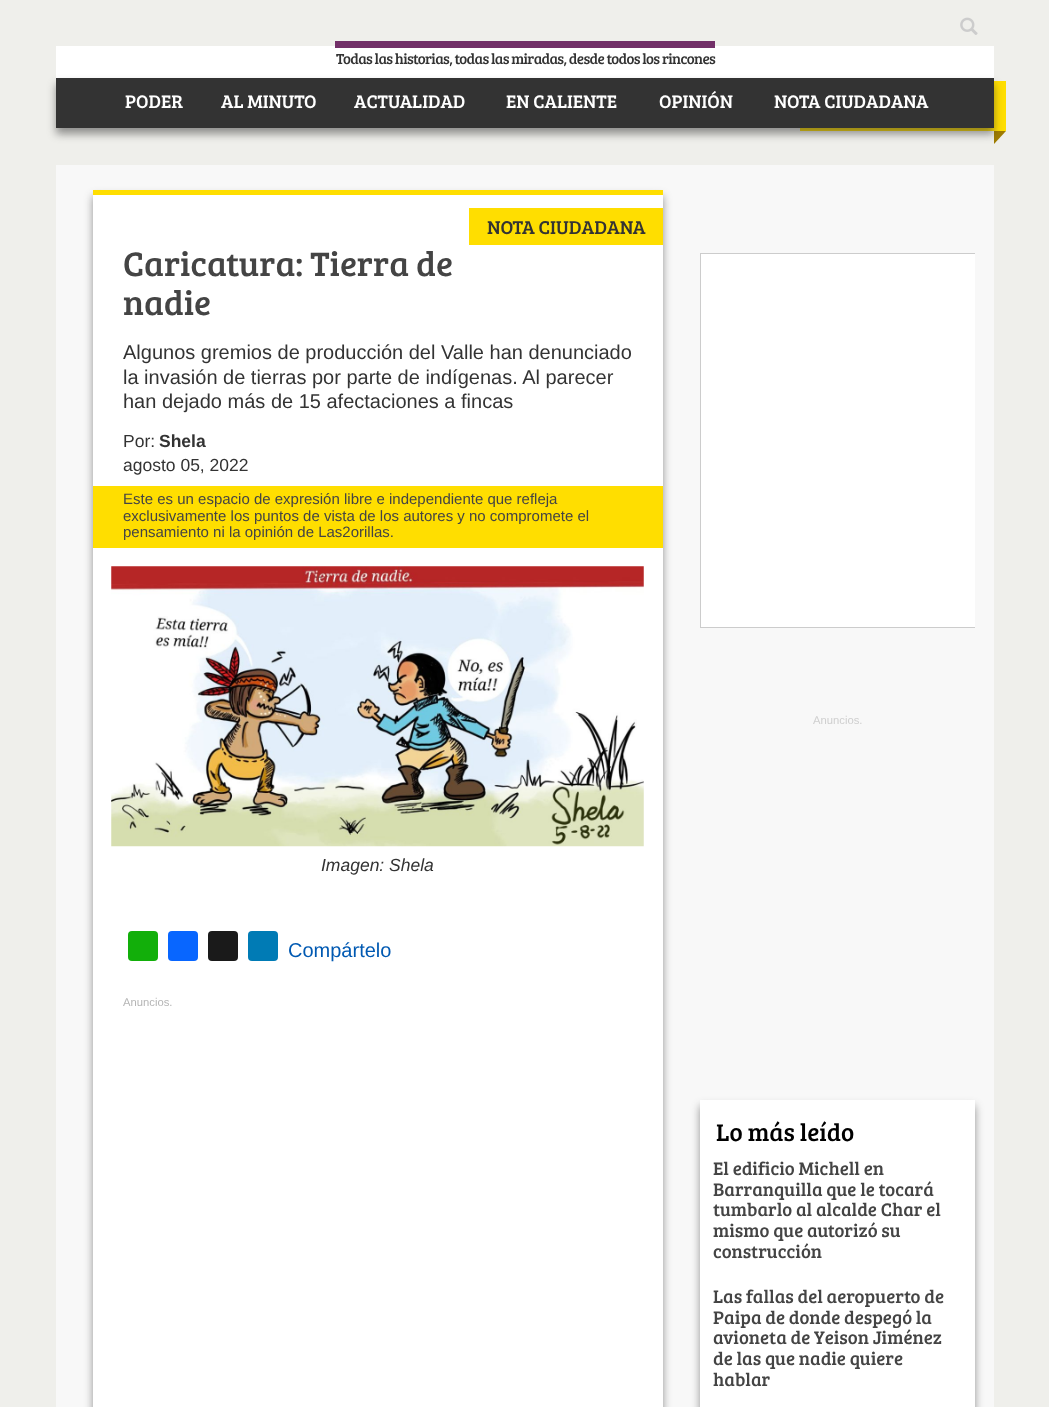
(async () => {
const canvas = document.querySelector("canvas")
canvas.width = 1049
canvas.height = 1407
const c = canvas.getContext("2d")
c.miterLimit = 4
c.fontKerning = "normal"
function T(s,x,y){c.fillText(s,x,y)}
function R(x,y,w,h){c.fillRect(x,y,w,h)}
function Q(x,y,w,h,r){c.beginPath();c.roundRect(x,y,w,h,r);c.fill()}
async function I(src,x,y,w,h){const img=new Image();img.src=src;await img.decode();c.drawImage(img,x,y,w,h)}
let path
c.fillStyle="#efefeb"
R(0,0,1049,1407)
await I("1.png",960,17,18,18)
c.fillStyle="#fff"
R(56,46,938,32)
c.letterSpacing="-0.62px"
c.font="15px Bree Serif"
c.fillStyle="#333"
T("Todas las historias, todas las miradas, desde todos los rincones",336,64)
c.fillStyle="#723068"
R(335,41,380,7)
c.fillStyle="#ffde00"
R(800,128,194,3)
R(994,81,12,50)
c.fillStyle="#9f7c00"
path = new Path2D("M994 144v-13h12z")
c.fill(path)
c.fillStyle="#32323282"
c.filter="blur(4.5px)"
c.beginPath()
c.rect(56,84,938,50)
c.fill()
c.filter="none"
c.fillStyle="#333"
R(56,78,938,50)
c.letterSpacing="0px"
c.font="18.75px Bree Serif"
c.fillStyle="#fff"
T("PODER",125,108)
T("AL MINUTO",221,108)
T("ACTUALIDAD",354,108)
T("EN CALIENTE",506,108)
T("OPINIÓN",659,108)
T("NOTA CIUDADANA",774,108)
c.fillStyle="#f8f8f8"
R(56,165,938,1242)
c.fillStyle="#32323282"
c.filter="blur(4.5px)"
c.beginPath()
c.rect(93,196,570,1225)
c.fill()
c.filter="none"
c.fillStyle="#fff"
R(93,195,570,1212)
c.fillStyle="#ffde00"
R(93,190,570,5)
R(469,208,194,37)
c.font="19.25px Bree Serif"
c.fillStyle="#333"
T("NOTA CIUDADANA",487,234)
c.font="35px Bree Serif"
c.fillStyle="#444"
T("Caricatura: Tierra de",123,276)
T("nadie",123,315)
c.font="20px Liberation Sans"
c.fillStyle="#333"
T("Algunos gremios de producción del Valle han denunciado",123,359)
T("la invasión de tierras por parte de indígenas. Al parecer",123,384)
T("han dejado más de 15 afectaciones a fincas",123,408)
c.font="17.5px Liberation Sans"
T("Por:",123,447)
c.font="bold 17.5px Liberation Sans"
T("Shela",159,447)
c.font="17.5px Liberation Sans"
T("agosto 05, 2022",123,471)
c.fillStyle="#ffde00"
R(93,486,570,62)
c.font="15px Liberation Sans"
c.fillStyle="#444"
T("Este es un espacio de expresión libre e independiente que refleja",123,504)
T("exclusivamente los puntos de vista de los autores y no compromete el",123,521)
T("pensamiento ni la opinión de Las2orillas.",123,537)
await I("2.png",111,566,533,281)
c.font="italic 17.5px Liberation Sans"
c.fillStyle="#333"
T("Imagen: Shela",321,871)
c.fillStyle="#12af0a"
Q(128,931,30,30,4)
c.fillStyle="#0866ff"
Q(168,931,30,30,4)
c.fillStyle="#1a1a1a"
Q(208,931,30,30,4)
c.fillStyle="#007bb5"
Q(248,931,30,30,4)
c.font="20px Liberation Sans"
c.fillStyle="#0059b2"
T("Compártelo",288,957)
c.font="11.25px Liberation Sans"
c.fillStyle="#b5b5b5"
T("Anuncios.",123,1006)
c.fillStyle="#fff"
R(701,254,274,373)
c.save()
c.beginPath()
c.rect(700,190,275,500)
c.clip()
c.strokeStyle="#ccc"
c.strokeRect(700.5,253.5,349,374)
c.restore()
c.fillStyle="#cfcfcf"
T("Anuncios.",813,724)
c.fillStyle="#32323282"
c.filter="blur(4.5px)"
c.beginPath()
c.rect(700,1106,275,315)
c.fill()
c.filter="none"
c.fillStyle="#fff"
R(700,1100,275,307)
c.font="25px Bree Serif"
c.fillStyle="#000"
T("Lo más leído",716,1141)
c.font="18.75px Bree Serif"
c.fillStyle="#444"
T("El edificio Michell en",713,1175)
T("Barranquilla que le tocará",713,1196)
T("tumbarlo al alcalde Char el",713,1216)
T("mismo que autorizó su",713,1237)
T("construcción",713,1258)
T("Las fallas del aeropuerto de",713,1303)
T("Paipa de donde despegó la",713,1324)
T("avioneta de Yeison Jiménez",713,1344)
T("de las que nadie quiere",713,1365)
T("hablar",713,1386)
})()
